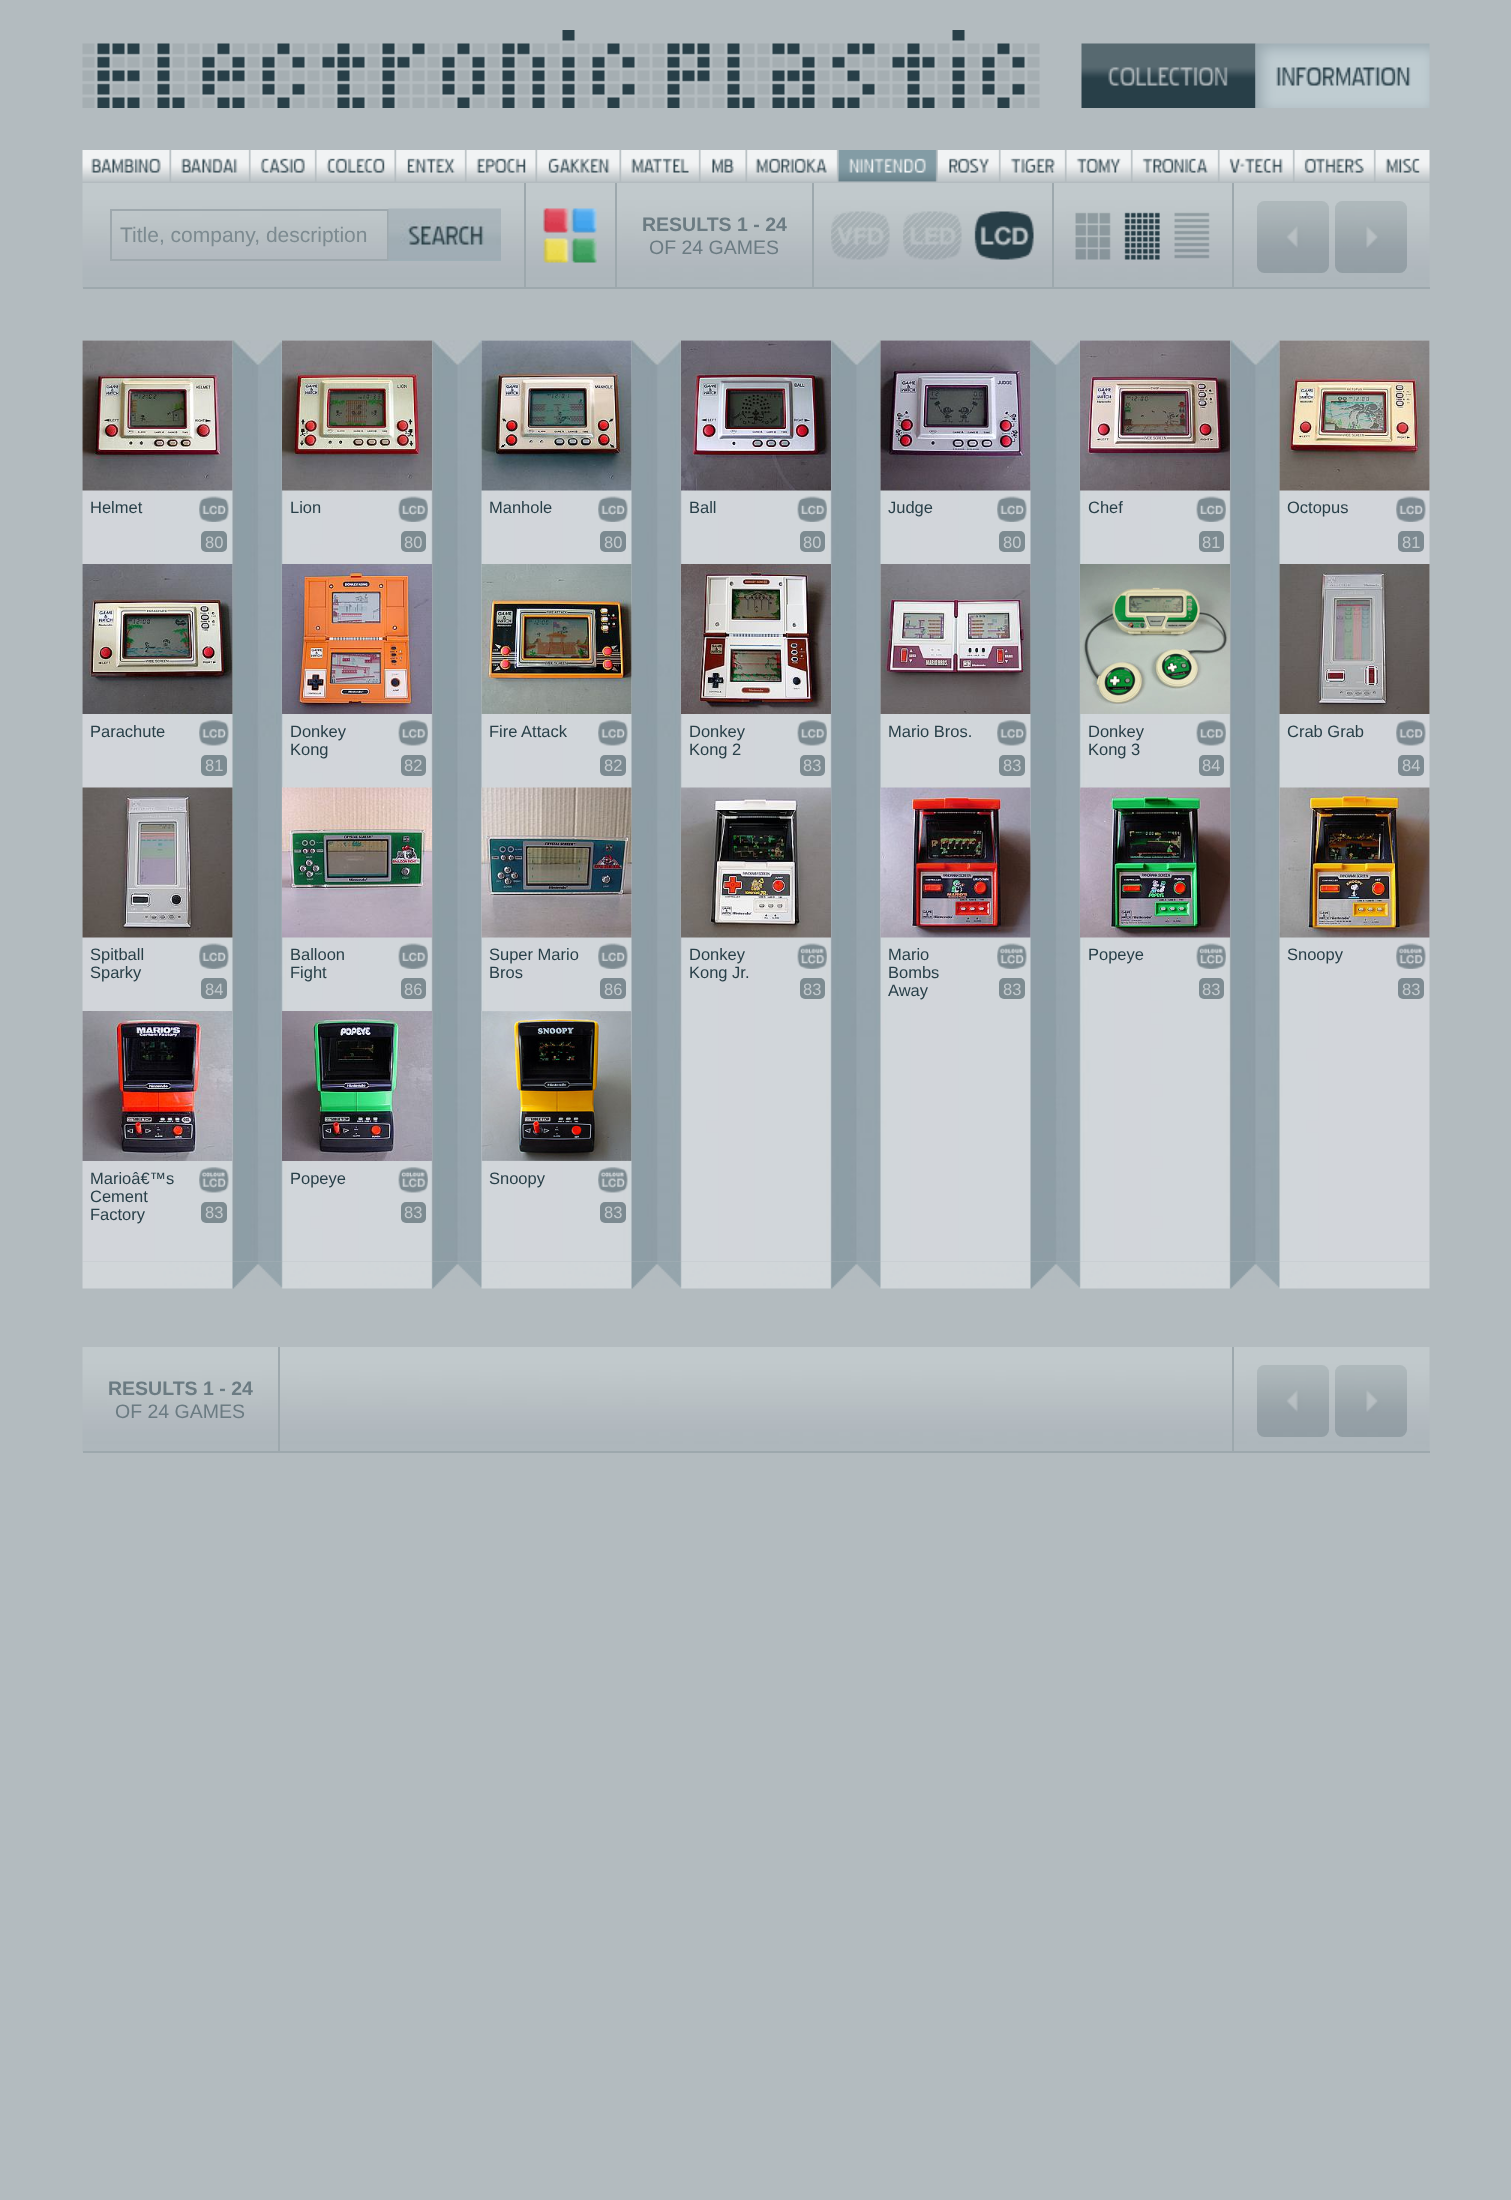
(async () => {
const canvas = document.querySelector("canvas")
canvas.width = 1511
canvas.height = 2200
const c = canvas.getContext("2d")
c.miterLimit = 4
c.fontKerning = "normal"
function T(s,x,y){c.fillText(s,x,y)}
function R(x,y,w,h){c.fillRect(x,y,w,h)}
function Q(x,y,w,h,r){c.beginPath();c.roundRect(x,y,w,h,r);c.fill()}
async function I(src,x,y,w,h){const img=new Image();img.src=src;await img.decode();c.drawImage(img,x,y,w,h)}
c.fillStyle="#b3bbbf"
R(0,0,1511,2200)
await I("1.png",82,30,958,78)
await I("2.png",1081,43,175,65)
await I("3.png",1255,43,175,65)
await I("4.png",82,150,1348,32)
await I("5.png",838,150,100,32)
await I("6.png",82,183,1348,105)
c.fillStyle="#9da8ad"
R(83,287,1347,2)
R(524,183,2,104)
c.strokeStyle="#9ea8ad"
c.lineWidth=2
c.strokeRect(111,210,277,50)
c.font="21px Liberation Sans"
c.fillStyle="#7c8a90"
T("Title, company, description",120,242)
await I("7.png",388,208,113,53)
c.fillStyle="#9da8ad"
R(615,183,2,104)
await I("8.png",543,208,54,55)
R(812,183,2,105)
c.font="bold 19.5px Liberation Sans"
c.fillStyle="#6b7b82"
T("RESULTS 1 - 24",642,231)
c.font="19.5px Liberation Sans"
T("OF 24 GAMES",649,254)
c.fillStyle="#9da8ad"
R(1052,183,2,105)
await I("9.png",831,211,59,49)
await I("10.png",903,211,59,49)
await I("11.png",974,211,60,49)
await I("12.png",1075,212,36,48)
await I("13.png",1124,212,36,48)
await I("14.png",1174,212,36,47)
R(1232,183,2,104)
await I("15.png",1257,201,72,72)
await I("16.png",1335,201,72,72)
await I("17.png",82,340,1348,922)
await I("18.png",82,340,151,151)
c.font="16.5px Liberation Sans"
c.fillStyle="#283f48"
T("Helmet",90,513)
await I("19.png",199,496,30,26)
c.fillStyle="#7d8b91"
Q(201,531,26,21,5)
c.fillStyle="#c2c9cd"
T("80",205,548)
await I("20.png",282,340,150,151)
c.fillStyle="#283f48"
T("Lion",290,513)
await I("21.png",398,496,30,26)
c.fillStyle="#7d8b91"
Q(401,531,25,21,5)
c.fillStyle="#c2c9cd"
T("80",404,548)
await I("22.png",481,340,151,151)
c.fillStyle="#283f48"
T("Manhole",489,513)
await I("23.png",598,496,30,26)
c.fillStyle="#7c8a91"
Q(600,531,26,21,5)
c.fillStyle="#c2c9cd"
T("80",604,548)
await I("24.png",681,340,150,151)
c.fillStyle="#283f48"
T("Ball",689,513)
await I("25.png",797,496,30,26)
c.fillStyle="#7d8b91"
Q(800,531,25,21,5)
c.fillStyle="#c2c9cd"
T("80",803,548)
await I("26.png",880,340,151,151)
c.fillStyle="#283f48"
T("Judge",888,513)
await I("27.png",997,496,30,26)
c.fillStyle="#7d8b91"
Q(999,531,26,21,5)
c.fillStyle="#c2c9cd"
T("80",1003,548)
await I("28.png",1080,340,150,151)
c.fillStyle="#283f48"
T("Chef",1088,513)
await I("29.png",1196,496,30,26)
c.fillStyle="#7d8b91"
Q(1199,531,25,21,5)
c.fillStyle="#c2c9cd"
T("81",1202,548)
await I("30.png",1279,340,151,151)
c.fillStyle="#283f48"
T("Octopus",1287,513)
await I("31.png",1396,496,30,26)
c.fillStyle="#7d8a91"
Q(1398,531,26,21,5)
c.fillStyle="#c2c9cd"
T("81",1402,548)
await I("32.png",82,564,151,150)
c.fillStyle="#283f48"
T("Parachute",90,737)
await I("33.png",199,720,30,26)
c.fillStyle="#7c8b91"
Q(201,755,26,21,5)
c.fillStyle="#c2c9cd"
T("81",205,771)
await I("34.png",282,564,150,150)
c.fillStyle="#283f48"
T("Donkey",290,737)
T("Kong",290,755)
await I("35.png",398,720,30,26)
c.fillStyle="#7d8b91"
Q(401,755,25,21,5)
c.fillStyle="#c2c9cd"
T("82",404,771)
await I("36.png",481,564,151,150)
c.fillStyle="#283f48"
T("Fire Attack",489,737)
await I("37.png",598,720,30,26)
c.fillStyle="#7c8a91"
Q(600,755,26,21,5)
c.fillStyle="#c2c9cd"
T("82",604,771)
await I("38.png",681,564,150,150)
c.fillStyle="#283f48"
T("Donkey",689,737)
T("Kong 2",689,755)
await I("39.png",797,720,30,26)
c.fillStyle="#7d8b91"
Q(800,755,25,21,5)
c.fillStyle="#c2c9cd"
T("83",803,771)
await I("40.png",880,564,151,150)
c.fillStyle="#283f48"
T("Mario Bros.",888,737)
await I("41.png",997,720,30,26)
c.fillStyle="#7d8b91"
Q(999,755,26,21,5)
c.fillStyle="#c2c9cd"
T("83",1003,771)
await I("42.png",1080,564,150,150)
c.fillStyle="#283f48"
T("Donkey",1088,737)
T("Kong 3",1088,755)
await I("43.png",1196,720,30,26)
c.fillStyle="#7d8b91"
Q(1199,755,25,21,5)
c.fillStyle="#c2c9cd"
T("84",1202,771)
await I("44.png",1279,564,151,150)
c.fillStyle="#283f48"
T("Crab Grab",1287,737)
await I("45.png",1396,720,30,26)
c.fillStyle="#7d8a91"
Q(1398,755,26,21,5)
c.fillStyle="#c2c9cd"
T("84",1402,771)
await I("46.png",82,787,151,151)
c.fillStyle="#283f48"
T("Spitball",90,960)
T("Sparky",90,978)
await I("19.png",199,943,30,26)
c.fillStyle="#7d8b91"
Q(201,978,26,21,5)
c.fillStyle="#c2c9cd"
T("84",205,995)
await I("47.png",282,787,150,151)
c.fillStyle="#283f48"
T("Balloon",290,960)
T("Fight",290,978)
await I("21.png",398,943,30,26)
c.fillStyle="#7d8b91"
Q(401,978,25,21,5)
c.fillStyle="#c2c9cd"
T("86",404,995)
await I("48.png",481,787,151,151)
c.fillStyle="#283f48"
T("Super Mario",489,960)
T("Bros",489,978)
await I("49.png",598,943,30,26)
c.fillStyle="#7c8a91"
Q(600,978,26,21,5)
c.fillStyle="#c2c9cd"
T("86",604,995)
await I("50.png",681,787,150,151)
c.fillStyle="#283f48"
T("Donkey",689,960)
T("Kong Jr.",689,978)
await I("51.png",797,943,30,26)
c.fillStyle="#7d8b91"
Q(800,978,25,21,5)
c.fillStyle="#c2c9cd"
T("83",803,995)
await I("52.png",880,787,151,151)
c.fillStyle="#283f48"
T("Mario",888,960)
T("Bombs",888,978)
T("Away",888,996)
await I("53.png",997,943,30,26)
c.fillStyle="#7d8b91"
Q(999,978,26,21,5)
c.fillStyle="#c2c9cd"
T("83",1003,995)
await I("54.png",1080,787,150,151)
c.fillStyle="#283f48"
T("Popeye",1088,960)
await I("55.png",1196,943,30,26)
c.fillStyle="#7d8b91"
Q(1199,978,25,21,5)
c.fillStyle="#c2c9cd"
T("83",1202,995)
await I("56.png",1279,787,151,151)
c.fillStyle="#283f48"
T("Snoopy",1287,960)
await I("57.png",1396,943,30,26)
c.fillStyle="#7d8a91"
Q(1398,978,26,21,5)
c.fillStyle="#c2c9cd"
T("83",1402,995)
await I("58.png",82,1011,151,150)
c.fillStyle="#283f48"
T("Marioâ€™s",90,1184)
T("Cement",90,1202)
T("Factory",90,1220)
await I("59.png",199,1167,30,26)
c.fillStyle="#7d8b91"
Q(201,1202,26,21,5)
c.fillStyle="#c2c9cd"
T("83",205,1218)
await I("60.png",282,1011,150,150)
c.fillStyle="#283f48"
T("Popeye",290,1184)
await I("61.png",398,1167,30,26)
c.fillStyle="#7d8b91"
Q(401,1202,25,21,5)
c.fillStyle="#c2c9cd"
T("83",404,1218)
await I("62.png",481,1011,151,150)
c.fillStyle="#283f48"
T("Snoopy",489,1184)
await I("63.png",598,1167,30,26)
c.fillStyle="#7c8a91"
Q(600,1202,26,21,5)
c.fillStyle="#c2c9cd"
T("83",604,1218)
await I("64.png",82,1261,1348,28)
await I("6.png",82,1347,1348,105)
c.fillStyle="#9da8ad"
R(83,1451,1347,2)
R(278,1347,2,105)
c.font="bold 19.5px Liberation Sans"
c.fillStyle="#6b7b82"
T("RESULTS 1 - 24",108,1395)
c.font="19.5px Liberation Sans"
T("OF 24 GAMES",115,1418)
c.fillStyle="#9da8ad"
R(1232,1347,2,104)
await I("15.png",1257,1365,72,72)
await I("16.png",1335,1365,72,72)
})()
